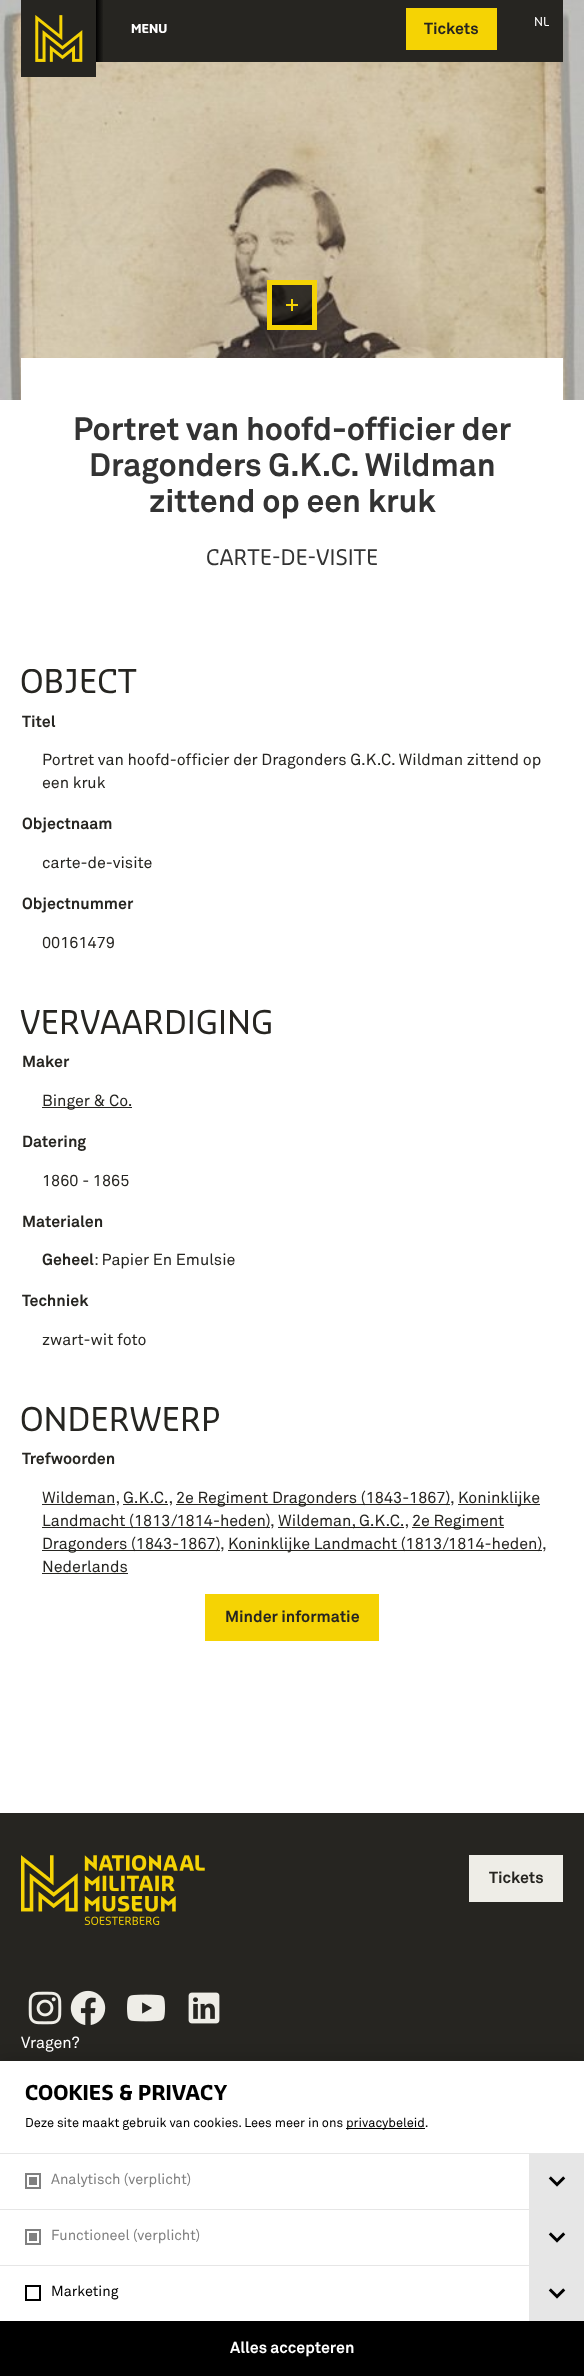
(async () => {
const canvas = document.querySelector("canvas")
canvas.width = 584
canvas.height = 2376
const c = canvas.getContext("2d")
c.miterLimit = 4
c.fontKerning = "normal"
function T(s,x,y){c.fillText(s,x,y)}
function R(x,y,w,h){c.fillRect(x,y,w,h)}
async function I(src,x,y,w,h){const img=new Image();img.src=src;await img.decode();c.drawImage(img,x,y,w,h)}
let gradient
c.fillStyle="#fff"
R(0,0,584,2376)
await I("2.png",0,0,584,400)
c.fillStyle="#262521"
R(21,0,542,62)
await I("1.png",21,15,75,62)
gradient = c.createLinearGradient(96,31,104,31)
gradient.addColorStop(0,"#000")
gradient.addColorStop(1,"#262521")
c.fillStyle = gradient
R(96,0,7,62)
c.font="bold 12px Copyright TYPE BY"
c.fillStyle="#fff"
T("MENU",131,33)
c.fillStyle="#f5d304"
R(406,8,91,42)
c.font="bold 16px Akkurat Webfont"
c.fillStyle="#262521"
T("Tickets",424,34)
c.font="12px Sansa"
c.fillStyle="#fff"
T("NL",534,26)
c.fillStyle="#000000bf"
c.beginPath()
c.rect(269.5,282.5,45,45)
c.fill()
c.strokeStyle="#f5d304"
c.lineWidth=5
c.stroke()
await I("3.png",286,299,12,12)
c.fillStyle="#fff"
R(21,358,542,42)
c.font="bold 32px Akkurat Webfont"
c.fillStyle="#333"
T("Portret van hoofd-officier der",73,440)
T("Dragonders G.K.C. Wildman",89,476)
T("zittend op een kruk",149,512)
c.font="21px Sansa"
T("CARTE-DE-VISITE",206,565)
c.save()
c.beginPath()
c.rect(0,669,584,1144)
c.clip()
c.font="32px Sansa"
c.fillStyle="#262521"
T("OBJECT",20,693)
c.restore()
c.font="bold 16px Akkurat Webfont"
c.fillStyle="#262521"
T("Titel",22,727)
c.font="16px Akkurat Webfont"
T("Portret van hoofd-officier der Dragonders G.K.C. Wildman zittend op",42,765)
T("een kruk",42,788)
c.font="bold 16px Akkurat Webfont"
T("Objectnaam",22,829)
c.font="16px Akkurat Webfont"
T("carte-de-visite",42,868)
c.font="bold 16px Akkurat Webfont"
T("Objectnummer",22,909)
c.font="16px Akkurat Webfont"
T("00161479",42,948)
c.font="32px Sansa"
T("VERVAARDIGING",20,1034)
c.font="bold 16px Akkurat Webfont"
T("Maker",22,1067)
R(42,1107,90,1)
c.font="16px Akkurat Webfont"
T("Binger & Co.",42,1106)
c.font="bold 16px Akkurat Webfont"
T("Datering",22,1147)
c.font="16px Akkurat Webfont"
T("1860 - 1865",42,1186)
c.font="bold 16px Akkurat Webfont"
T("Materialen",22,1227)
T("Geheel",42,1265)
c.font="16px Akkurat Webfont"
T(": Papier En Emulsie",94,1265)
c.font="bold 16px Akkurat Webfont"
T("Techniek",22,1306)
c.font="16px Akkurat Webfont"
T("zwart-wit foto",42,1345)
c.font="32px Sansa"
T("ONDERWERP",20,1431)
c.font="bold 16px Akkurat Webfont"
T("Trefwoorden",22,1464)
R(42,1504,73,1)
c.font="16px Akkurat Webfont"
T("Wildeman, G.K.C.,",42,1503)
R(176,1504,274,1)
T("2e Regiment Dragonders (1843-1867),",176,1503)
R(458,1504,82,1)
T("Koninklijke",458,1503)
R(123,1504,45,1)
R(42,1527,228,1)
T("Landmacht (1813/1814-heden)",42,1526)
T(",",270,1526)
R(278,1527,126,1)
T("Wildeman, G.K.C.,",278,1526)
R(412,1527,92,1)
T("2e Regiment",412,1526)
R(42,1550,178,1)
T("Dragonders (1843-1867)",42,1549)
T(",",220,1549)
R(228,1550,314,1)
T("Koninklijke Landmacht (1813/1814-heden)",228,1549)
T(",",542,1549)
T("Nederlands",42,1572)
R(42,1573,86,1)
c.fillStyle="#f5d304"
R(205,1594,174,47)
c.font="bold 16px Akkurat Webfont"
c.fillStyle="#262521"
T("Minder informatie",225,1622)
R(0,1813,584,248)
await I("4.png",21,1855,184,70)
await I("5.png",28,1991,34,34)
await I("6.png",70,1990,36,35)
await I("7.png",127,1994,38,28)
await I("8.png",188,1992,32,32)
c.fillStyle="#eeede7"
R(469,1855,94,47)
c.fillStyle="#262521"
T("Tickets",489,1883)
c.font="16px Akkurat Webfont"
c.fillStyle="#fff"
T("Vragen?",21,2048)
c.fillStyle="#00000026"
c.filter="blur(7.5px)"
c.beginPath()
c.rect(-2,2059,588,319)
c.fill()
c.filter="none"
c.fillStyle="#fff"
R(0,2061,584,260)
c.font="bold 20px Copyright TYPE BY"
c.fillStyle="#000"
T("COOKIES & PRIVACY",25,2100)
c.font="12.8px Akkurat Webfont"
T("Deze site maakt gebruik van cookies. Lees meer in ons",25,2127)
R(346,2128,79,1)
T("privacybeleid.",346,2127)
c.fillStyle="#e6e6e6"
R(0,2153,584,1)
c.strokeStyle="#808080"
c.lineWidth=2
c.strokeRect(26,2174,14,14)
c.fillStyle="#808080"
R(29,2177,8,8)
c.font="14.4px Akkurat Webfont"
T("Analytisch (verplicht)",51,2184)
c.fillStyle="#e6e6e6"
R(529,2154,55,55)
await I("9.png",548,2176,18,11)
R(0,2209,584,1)
c.strokeRect(26,2230,14,14)
c.fillStyle="#808080"
R(29,2233,8,8)
T("Functioneel (verplicht)",51,2240)
c.fillStyle="#e6e6e6"
R(529,2210,55,55)
await I("9.png",548,2232,18,11)
R(0,2265,584,1)
c.strokeStyle="#000"
c.strokeRect(26,2286,14,14)
c.fillStyle="#000"
T("Marketing",51,2296)
c.fillStyle="#e6e6e6"
R(529,2266,55,55)
await I("9.png",548,2288,18,11)
c.fillStyle="#000"
R(0,2321,584,55)
c.font="bold 16px Akkurat Webfont"
c.fillStyle="#fff"
T("Alles accepteren",230,2353)
})()
